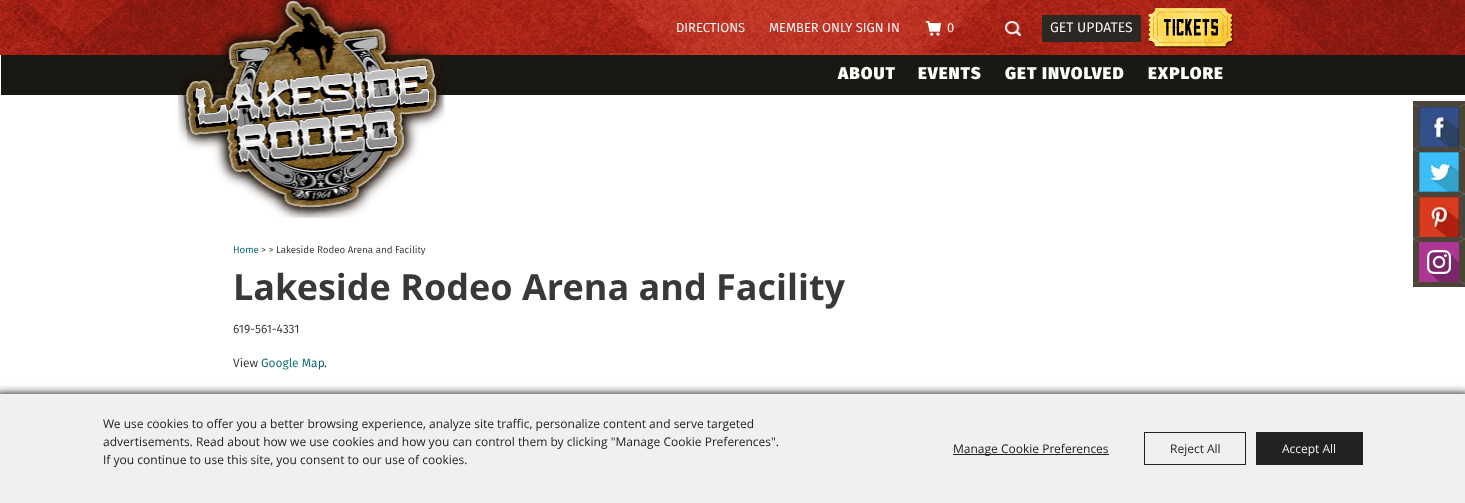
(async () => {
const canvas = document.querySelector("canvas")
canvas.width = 1465
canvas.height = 503
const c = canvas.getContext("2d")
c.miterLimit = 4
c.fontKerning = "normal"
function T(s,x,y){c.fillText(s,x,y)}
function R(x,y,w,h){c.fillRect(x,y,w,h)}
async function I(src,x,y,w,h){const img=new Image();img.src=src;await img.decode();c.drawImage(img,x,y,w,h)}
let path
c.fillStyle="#fff"
R(0,0,1465,503)
await I("1.png",0,0,1465,55)
c.fillStyle="#1a1813"
R(1,55,1464,40)
await I("2.png",178,0,267,218)
await I("3.png",1148,8,85,40)
c.font="13px Fira Sans"
c.fillStyle="#fff"
T("DIRECTIONS",676,32)
T("MEMBER ONLY SIGN IN",769,32)
await I("4.png",926,21,15,15)
T("0",947,32)
await I("5.png",1005,21,16,15)
c.fillStyle="#2c2824"
R(1042,15,99,27)
c.font="14px Fira Sans"
c.fillStyle="#fff"
T("GET UPDATES",1050,32)
await I("6.png",1148,8,85,40)
c.letterSpacing="1px"
c.font="900 17px Fira Sans"
T("ABOUT",838,79)
T("EVENTS",918,79)
T("GET INVOLVED",1005,79)
T("EXPLORE",1148,79)
c.fillStyle="#4c4339"
R(1413,101,52,3)
R(1413,284,52,3)
path = new Path2D("M1413 104h52l-6 3h-40z")
c.fill(path)
c.fillStyle="#1f1407cc"
path = new Path2D("M1465 104v45l-6-3v-39z")
c.fill(path)
path = new Path2D("M1465 149h-52l6-3h40z")
c.fill(path)
path = new Path2D("M1413 149v-45l6 3v39z")
c.fill(path)
await I("7.png",1419,107,40,40)
c.fillStyle="#4c4339"
path = new Path2D("M1413 149h52l-6 3h-40z")
c.fill(path)
c.fillStyle="#1f1407cc"
path = new Path2D("M1465 149v45l-6-3v-39z")
c.fill(path)
path = new Path2D("M1465 194h-52l6-3h40z")
c.fill(path)
path = new Path2D("M1413 194v-45l6 3v39z")
c.fill(path)
await I("8.png",1419,152,40,40)
c.fillStyle="#4c4339"
path = new Path2D("M1413 194h52l-6 3h-40z")
c.fill(path)
c.fillStyle="#1f1407cc"
path = new Path2D("M1465 194v45l-6-3v-39z")
c.fill(path)
path = new Path2D("M1465 239h-52l6-3h40z")
c.fill(path)
path = new Path2D("M1413 239v-45l6 3v39z")
c.fill(path)
await I("9.png",1419,197,40,40)
c.fillStyle="#4c4339"
path = new Path2D("M1413 239h52l-6 3h-40z")
c.fill(path)
c.fillStyle="#1f1407cc"
path = new Path2D("M1465 239v45l-6-3v-39z")
c.fill(path)
path = new Path2D("M1465 284h-52l6-3h40z")
c.fill(path)
path = new Path2D("M1413 284v-45l6 3v39z")
c.fill(path)
await I("10.png",1419,242,40,40)
c.letterSpacing="0px"
c.font="9.75px Fira Sans"
c.fillStyle="#046371"
T("Home",233,253)
c.fillStyle="#313131"
T("> > Lakeside Rodeo Arena and Facility",261,253)
c.font="bold 36px Open Sans"
c.fillStyle="#393838"
T("Lakeside Rodeo Arena and Facility",233,300)
c.font="12px Fira Sans"
c.fillStyle="#313131"
T("619-561-4331",233,333)
T("View",233,367)
c.fillStyle="#046371"
T("Google Map",261,367)
c.fillStyle="#313131"
T(".",324,367)
c.fillStyle="#000"
c.filter="blur(5px)"
c.beginPath()
c.rect(-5,394,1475,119)
c.fill()
c.filter="none"
c.fillStyle="#f0f0f0"
R(0,394,1465,109)
c.font="12px Open Sans"
c.fillStyle="#222"
T("We use cookies to offer you a better browsing experience, analyze site traffic, personalize content and serve targeted",103,428)
T("advertisements. Read about how we use cookies and how you can control them by clicking \"Manage Cookie Preferences\".",103,446)
T("If you continue to use this site, you consent to our use of cookies.",103,464)
R(953,454,156,1)
T("Manage Cookie Preferences",953,453)
c.strokeStyle="#222"
c.strokeRect(1144.5,432.5,101,32)
T("Reject All",1170,453)
R(1256,432,107,33)
c.fillStyle="#f0f0f0"
T("Accept All",1282,453)
})()
